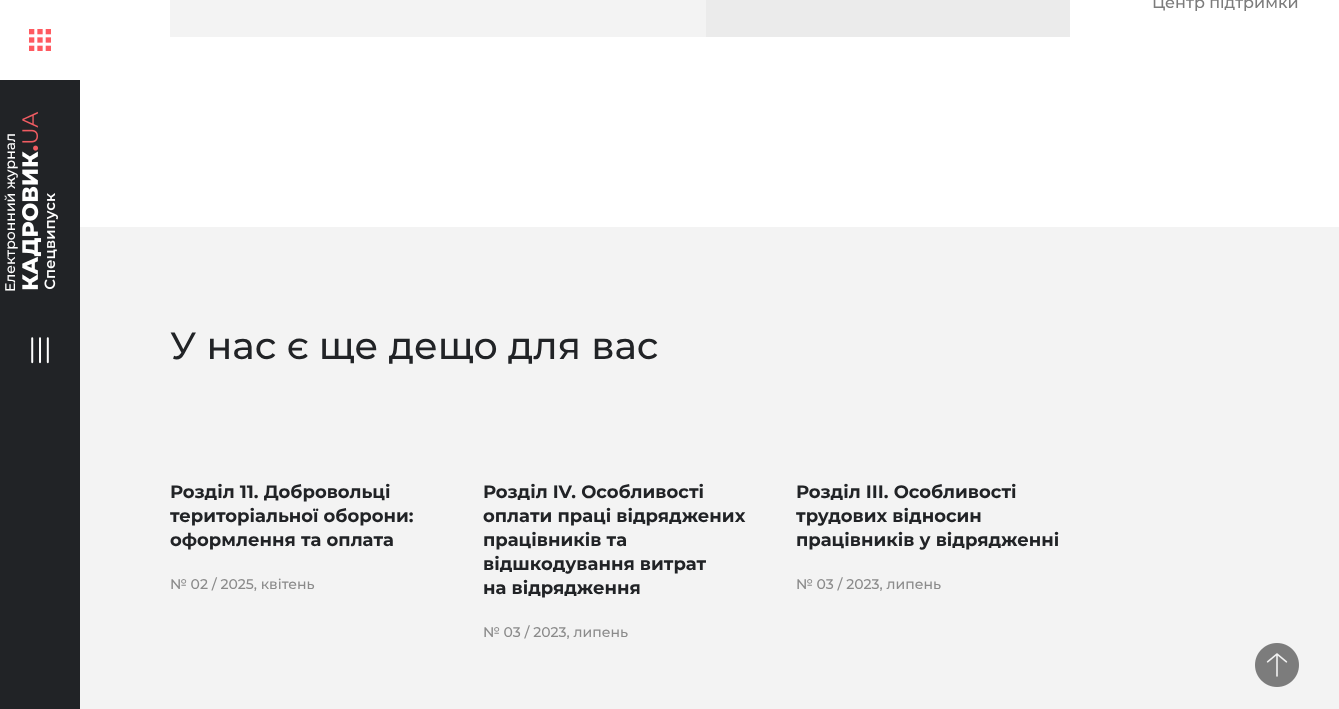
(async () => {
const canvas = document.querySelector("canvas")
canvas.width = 1339
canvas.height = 709
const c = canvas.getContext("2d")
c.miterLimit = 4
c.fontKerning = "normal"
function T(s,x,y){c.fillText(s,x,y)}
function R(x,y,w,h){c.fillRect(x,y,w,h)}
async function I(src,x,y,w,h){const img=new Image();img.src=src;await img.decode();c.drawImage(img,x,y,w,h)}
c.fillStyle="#fff"
R(0,0,1339,709)
c.fillStyle="#212326"
R(0,80,80,629)
await I("1.png",29,29,22,22)
c.font="500 14px Montserrat"
c.fillStyle="#fff"
c.save()
c.translate(15,292)
c.rotate(-90 * Math.PI / 180)
c.fillText("Електронний журнал",0,0)
c.restore()
await I("2.png",22,111,36,179)
await I("3.png",31,337,18,27)
c.fillStyle="#f3f3f3"
R(170,0,536,37)
c.fillStyle="#ebebeb"
R(706,0,364,37)
c.font="500 16px Montserrat"
c.fillStyle="#7c7c7c"
T("Центр підтримки",1152,8)
c.fillStyle="#f3f3f3"
R(80,227,1259,482)
c.font="500 38px Montserrat"
c.fillStyle="#212326"
T("У нас є ще дещо для вас",170,359)
c.font="bold 18px Montserrat"
T("Розділ 11. Добровольці",170,498)
T("територіальної оборони:",170,522)
T("оформлення та оплата",170,546)
c.font="500 14px Montserrat"
c.fillStyle="#8b8b8b"
T("№ 02 / 2025, квітень",170,589)
c.font="bold 18px Montserrat"
c.fillStyle="#212326"
T("Розділ IV. Особливості",483,498)
T("оплати праці відряджених",483,522)
T("працівників та",483,546)
T("відшкодування витрат",483,570)
T("на відрядження",483,594)
c.font="500 14px Montserrat"
c.fillStyle="#8b8b8b"
T("№ 03 / 2023, липень",483,637)
c.font="bold 18px Montserrat"
c.fillStyle="#212326"
T("Розділ ІІІ. Особливості",796,498)
T("трудових відносин",796,522)
T("працівників у відрядженні",796,546)
c.font="500 14px Montserrat"
c.fillStyle="#8b8b8b"
T("№ 03 / 2023, липень",796,589)
await I("4.png",1255,643,44,44)
})()
